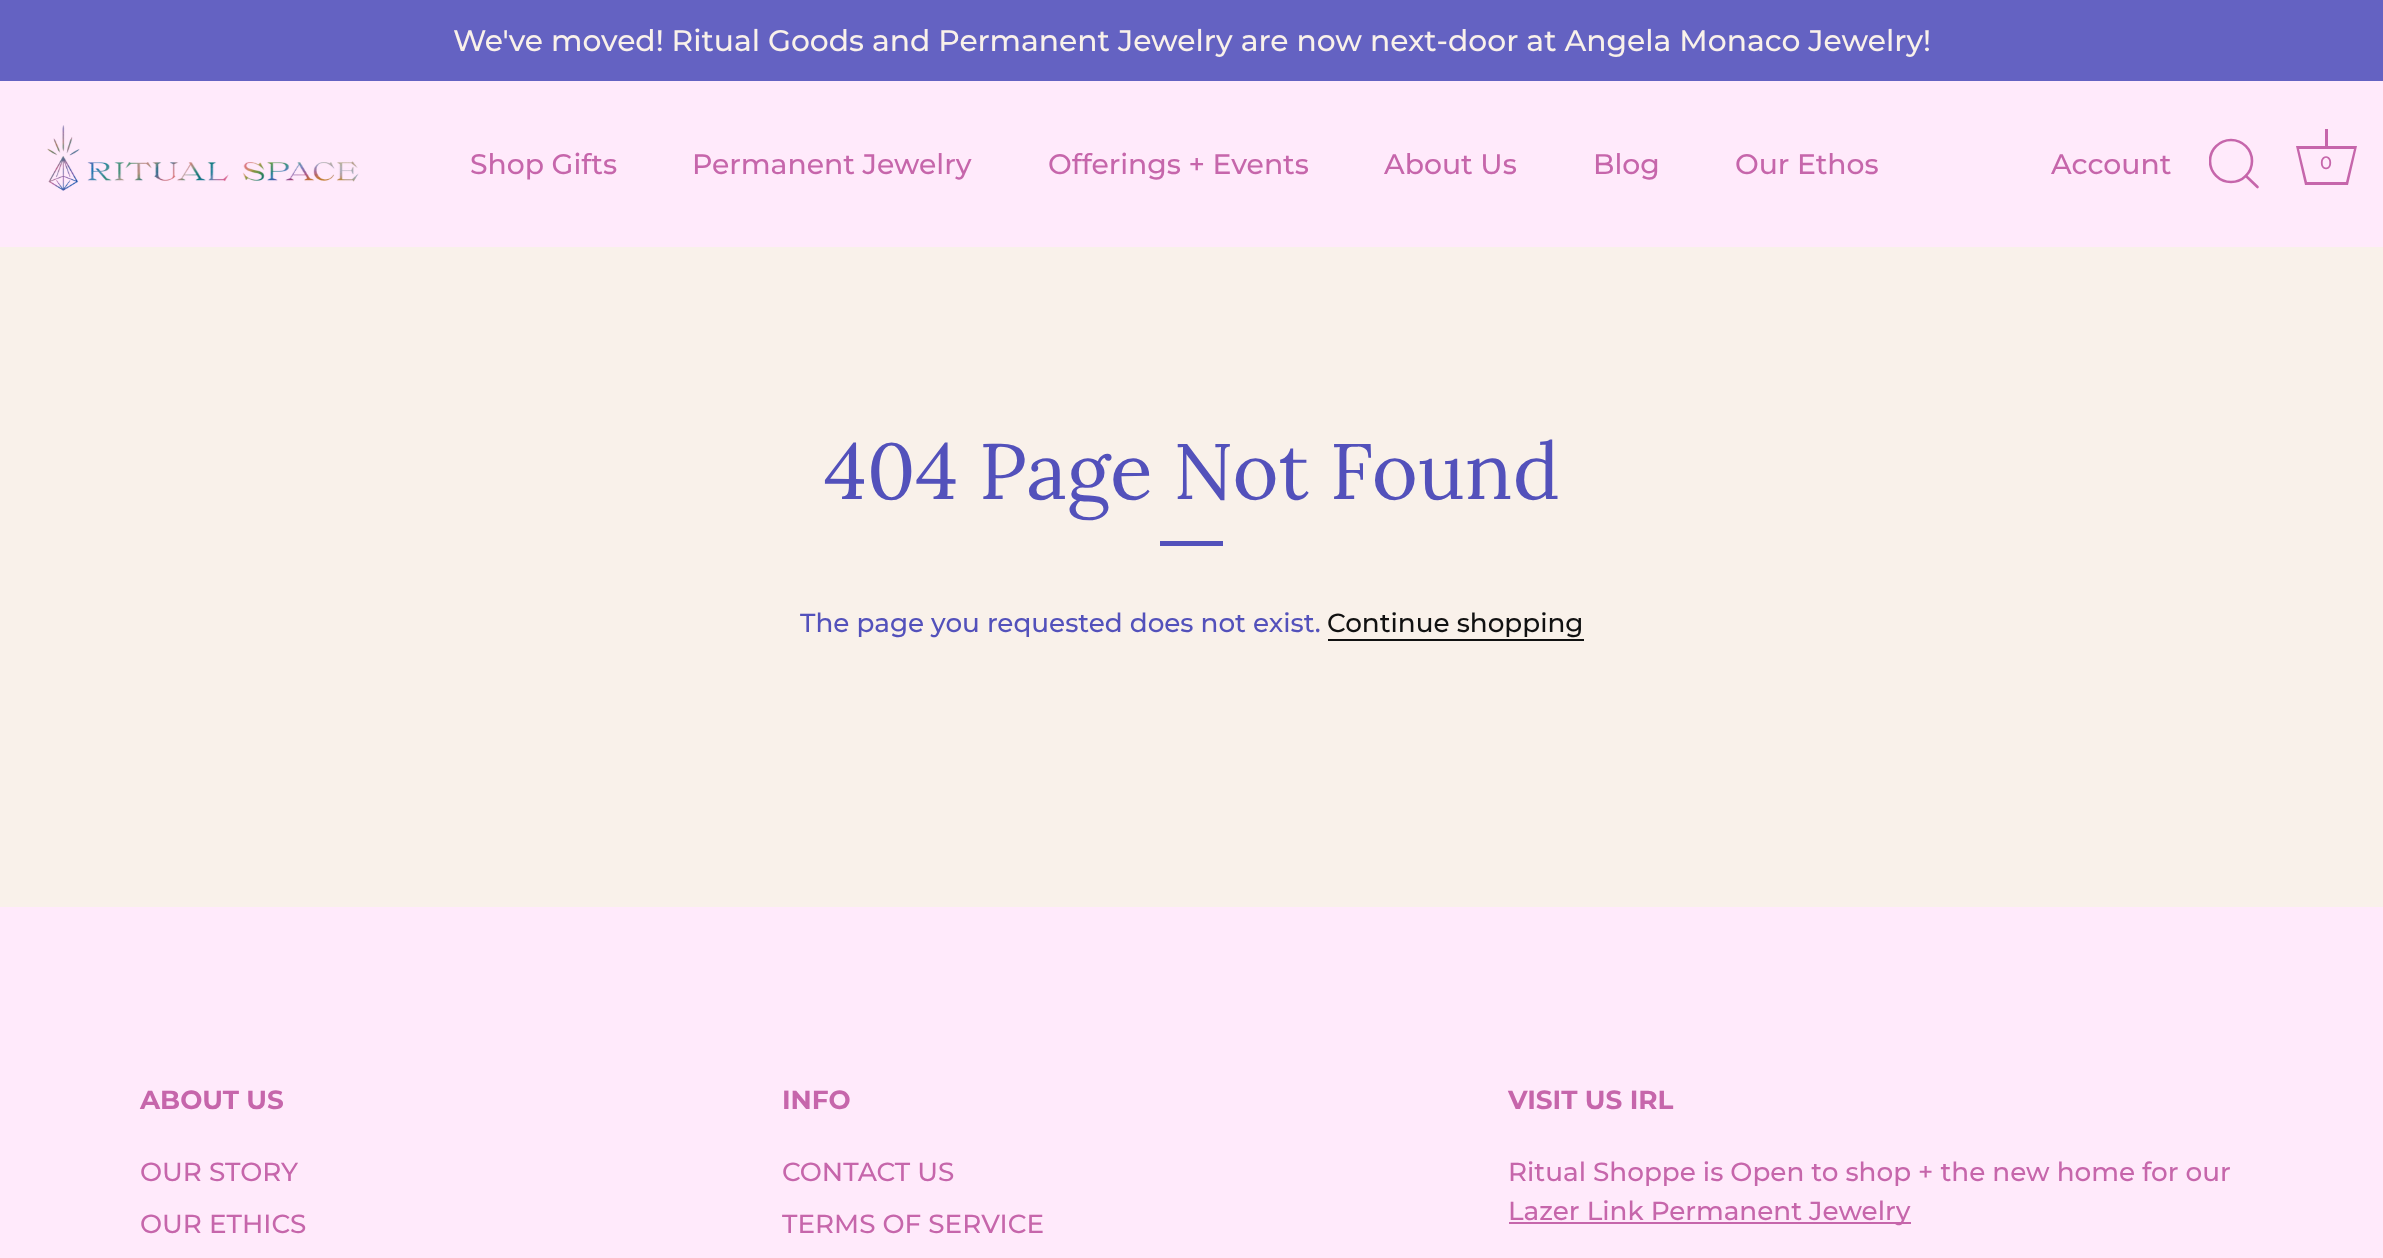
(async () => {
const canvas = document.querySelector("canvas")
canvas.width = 2383
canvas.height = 1258
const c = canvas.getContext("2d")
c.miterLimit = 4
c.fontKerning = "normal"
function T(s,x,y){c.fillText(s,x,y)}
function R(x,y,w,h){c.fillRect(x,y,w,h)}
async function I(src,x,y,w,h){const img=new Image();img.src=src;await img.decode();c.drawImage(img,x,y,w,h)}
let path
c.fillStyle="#f9f1ea"
R(0,0,2383,1258)
c.fillStyle="#ffeafb"
R(0,81,2383,166)
c.fillStyle="#6462c2"
R(0,0,2383,81)
c.font="500 29.75px Montserrat"
c.fillStyle="#f9f1ea"
T("We've moved! Ritual Goods and Permanent Jewelry are now next-door at Angela Monaco Jewelry!",453,51)
await I("1.png",47,125,312,66)
c.font="500 28.25px Montserrat"
c.fillStyle="#c666ab"
T("Shop Gifts",470,174)
T("Permanent Jewelry",692,174)
T("Offerings + Events",1048,174)
T("About Us",1384,174)
T("Blog",1593,174)
T("Our Ethos",1735,174)
T("Account",2051,174)
c.save()
c.beginPath()
c.rect(2209,138,50,51)
c.clip()
c.beginPath()
c.arc(2231,161,21,0,7)
c.strokeStyle="#c666ab"
c.lineWidth=2.6
c.stroke()
c.restore()
path = new Path2D("M2257.5 187l-11.5-11")
c.strokeStyle="#c666ab"
c.lineWidth=2.6
c.lineCap="round"
c.lineJoin="round"
c.stroke(path)
R(2325,129,3,17)
path = new Path2D("M2354 149l-8 33h-39l-8-33h55m3-3h-61l9 39h43z")
c.fill(path)
c.font="500 18px Montserrat"
T("0",2320,169)
c.font="78.75px Lora"
c.fillStyle="#5351bb"
T("404 Page Not Found",824,499)
R(1160,541,63,5)
c.font="500 26.25px Montserrat"
T("The page you requested does not exist.",800,632)
c.fillStyle="#111"
T("Continue shopping",1327,632)
R(1328,639,256,2)
c.fillStyle="#ffeafb"
R(0,907,2383,351)
c.font="bold 26.25px Montserrat"
c.fillStyle="#c666ab"
T("ABOUT US",140,1109)
c.font="500 26.25px Montserrat"
T("OUR STORY",140,1181)
T("OUR ETHICS",140,1233)
c.font="bold 26.25px Montserrat"
T("INFO",782,1109)
c.font="500 26.25px Montserrat"
T("CONTACT US",782,1181)
T("TERMS OF SERVICE",782,1233)
c.font="bold 26.25px Montserrat"
T("VISIT US IRL",1508,1109)
c.font="500 26.25px Montserrat"
T("Ritual Shoppe is Open to shop + the new home for our",1508,1181)
R(1509,1222,402,2)
T("Lazer Link Permanent Jewelry",1508,1220)
})()
